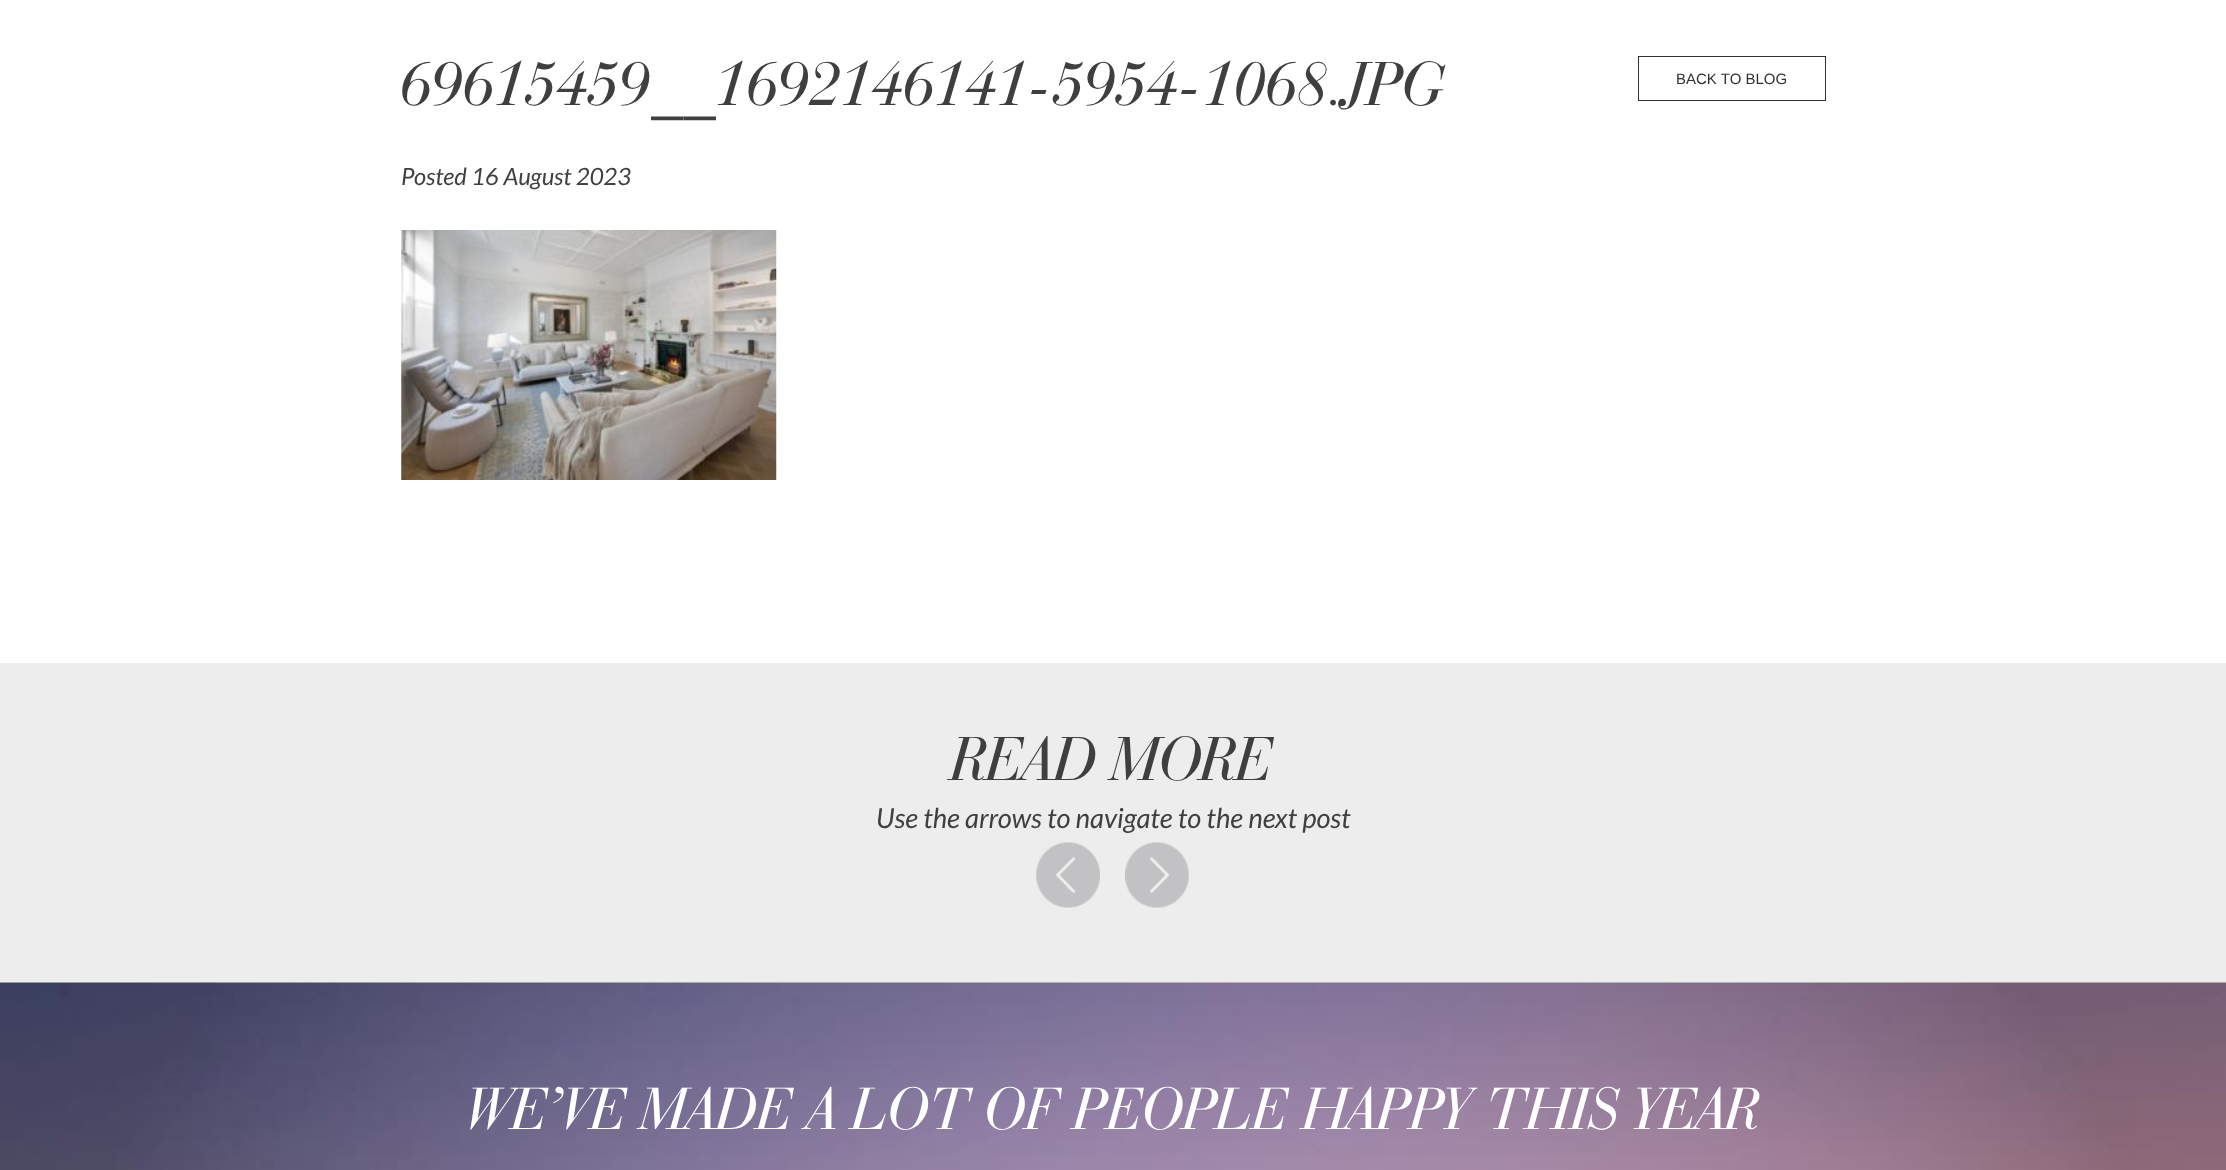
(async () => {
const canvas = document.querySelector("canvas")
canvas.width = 2226
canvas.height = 1170
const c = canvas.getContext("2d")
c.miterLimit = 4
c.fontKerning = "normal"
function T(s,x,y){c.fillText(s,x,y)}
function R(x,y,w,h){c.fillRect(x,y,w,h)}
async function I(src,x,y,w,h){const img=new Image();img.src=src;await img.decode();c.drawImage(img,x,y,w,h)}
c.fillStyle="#fff"
R(0,0,2226,1170)
c.font="italic 65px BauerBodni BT"
c.fillStyle="#3f3f42"
T("69615459__1692146141-5954-1068.JPG",401,105)
c.strokeStyle="#313133"
c.strokeRect(1638.5,56.5,187,44)
c.font="15px Liberation Sans"
c.fillStyle="#313133"
T("BACK TO BLOG",1676,84)
c.font="italic 23.75px Lato"
c.fillStyle="#3f3f42"
T("Posted 16 August 2023",401,185)
await I("1.png",401,230,376,250)
c.fillStyle="#eeeded"
R(0,663,2226,320)
c.font="italic 65px BauerBodni BT"
c.fillStyle="#3f3f42"
T("READ MORE",953,780)
c.font="italic 27.5px Lato"
T("Use the arrows to navigate to the next post",876,828)
await I("2.png",1036,842,64,66)
await I("3.png",1125,842,64,66)
await I("4.png",0,982,2226,188)
c.font="italic 62.5px BauerBodni BT"
c.fillStyle="#fff"
T("WE’VE MADE A LOT OF PEOPLE HAPPY THIS YEAR",467,1129)
})()
